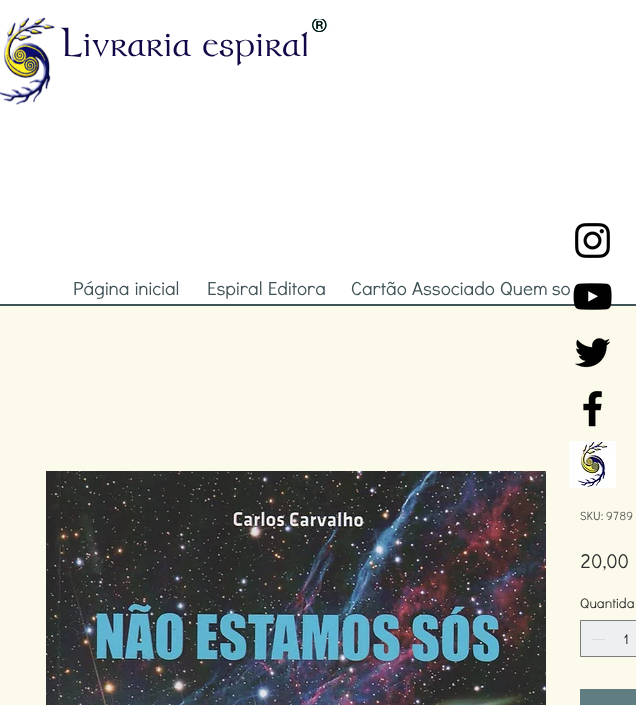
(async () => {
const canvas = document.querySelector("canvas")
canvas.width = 636
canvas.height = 705
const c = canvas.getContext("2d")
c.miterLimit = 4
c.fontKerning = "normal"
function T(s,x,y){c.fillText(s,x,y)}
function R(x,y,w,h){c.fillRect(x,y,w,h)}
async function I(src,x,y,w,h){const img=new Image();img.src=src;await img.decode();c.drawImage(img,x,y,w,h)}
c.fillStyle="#fcfbeb"
R(0,0,636,705)
c.fillStyle="#fff"
R(0,0,636,304)
c.fillStyle="#405357"
R(0,304,636,2)
await I("1.png",0,17,55,88)
await I("2.png",310,19,19,13)
c.font="500 43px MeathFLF"
c.fillStyle="#110947"
T("Livraria espiral",60,56)
c.wordSpacing="1px"
c.font="19px Didact Gothic"
c.fillStyle="#405357"
T("Página inicial",73,295)
T("Espiral Editora",207,295)
T("Cartão Associado",351,295)
c.wordSpacing="0px"
T("Quem so",500,295)
await I("3.png",575,223,35,35)
await I("4.png",573,283,39,27)
await I("5.png",575,338,36,30)
await I("6.png",583,391,19,36)
await I("7.png",569,441,47,47)
await I("8.png",46,471,500,234)
c.font="12px Didact Gothic"
c.fillStyle="#5e5e5e"
T("SKU: 9789",580,520)
c.wordSpacing="1px"
c.font="20px Didact Gothic"
c.fillStyle="#2f2f2f"
T("20,00",580,568)
c.wordSpacing="0px"
c.font="14px Didact Gothic"
T("Quantida",580,608)
c.fillStyle="#edeff0"
c.beginPath()
c.rect(580.5,620.5,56,36)
c.fill()
c.strokeStyle="#7b7c7c"
c.stroke()
c.fillStyle="#dadbdc"
R(592,639,13,1)
c.fillStyle="#2f2f2f"
T("1",622,644)
c.fillStyle="#607d82"
R(580,689,56,16)
})()
